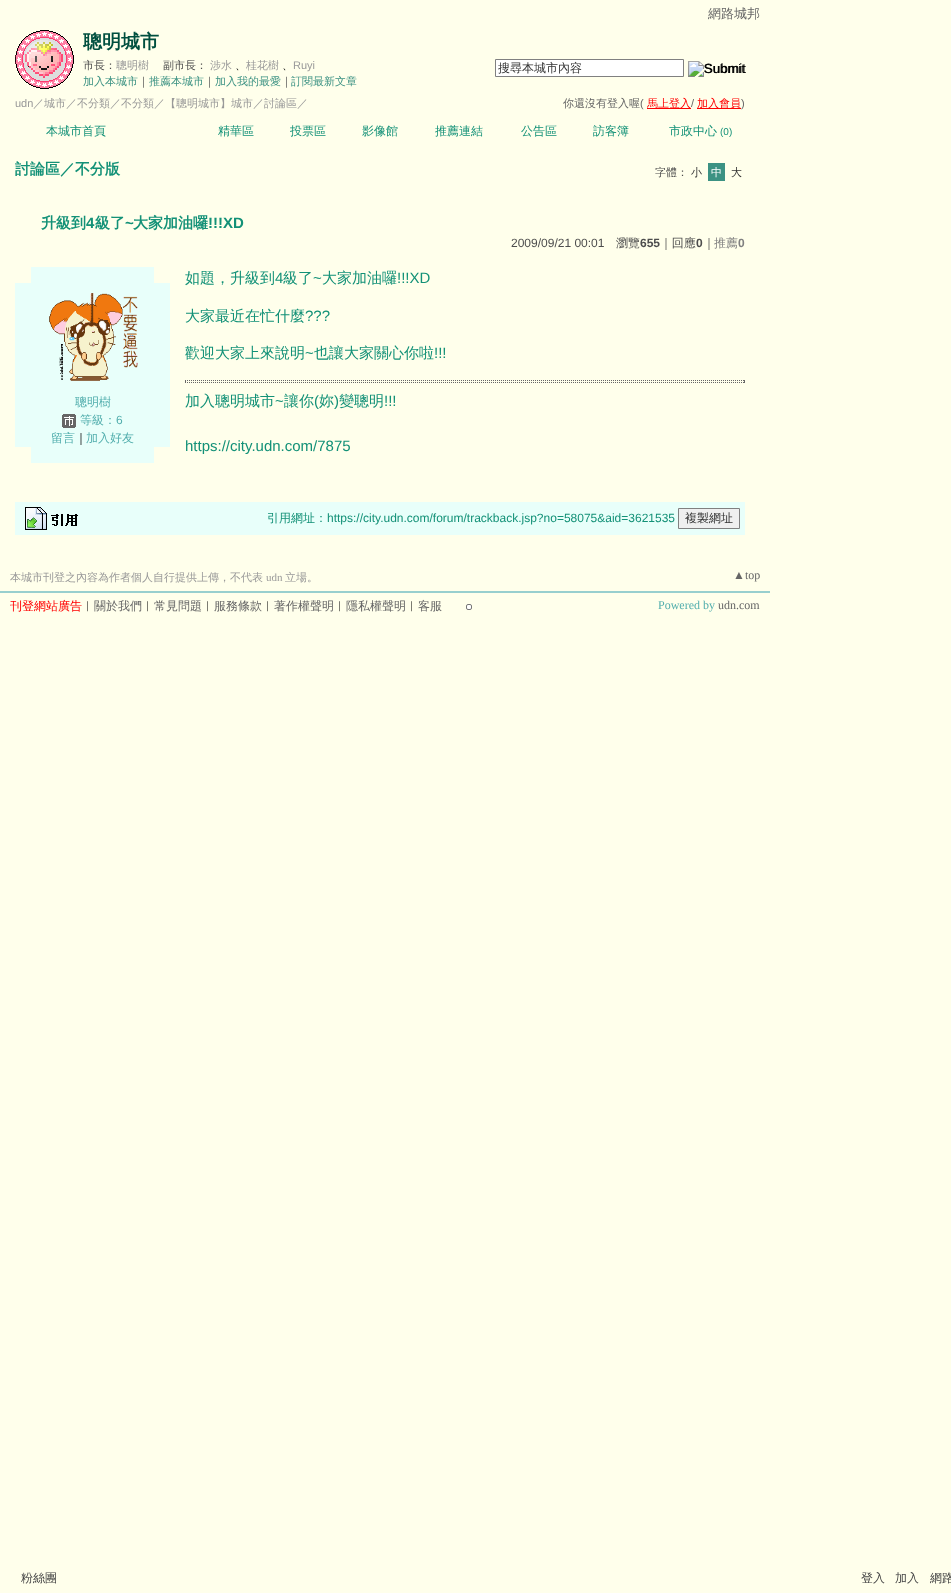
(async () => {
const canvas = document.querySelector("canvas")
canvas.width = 951
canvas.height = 1593
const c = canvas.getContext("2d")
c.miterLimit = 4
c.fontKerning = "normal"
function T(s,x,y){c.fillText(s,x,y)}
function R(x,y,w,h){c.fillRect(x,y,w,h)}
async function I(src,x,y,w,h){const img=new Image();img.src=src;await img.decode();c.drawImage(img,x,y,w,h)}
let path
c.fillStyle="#ffffeb"
R(0,0,951,1593)
c.font="500 13px WenQuanYi Zen Hei"
c.fillStyle="#666"
T("網路城邦",708,18)
await I("1.png",15,30,59,59)
c.font="bold 19px WenQuanYi Zen Hei"
c.fillStyle="#004f3f"
T("聰明城市",83,48)
c.font="500 11px WenQuanYi Zen Hei"
c.fillStyle="#4d4d4d"
T("市長：",83,69)
c.fillStyle="#999"
T("聰明樹",116,69)
c.fillStyle="#4d4d4d"
T("副市長：",163,69)
c.fillStyle="#999"
T("涉水",210,69)
c.fillStyle="#000"
T("、",235,69)
c.fillStyle="#999"
T("桂花樹",246,69)
c.fillStyle="#000"
T("、",282,69)
c.font="11px Liberation Sans"
c.fillStyle="#999"
T("Ruyi",293,69)
c.font="500 11px WenQuanYi Zen Hei"
c.fillStyle="#3c9283"
T("加入本城市",83,85)
c.fillStyle="#4d4d4d"
T("｜",138,85)
c.fillStyle="#3c9283"
T("推薦本城市",149,85)
c.fillStyle="#4d4d4d"
T("｜",204,85)
c.fillStyle="#3c9283"
T("加入我的最愛",215,85)
c.fillStyle="#4d4d4d"
T("｜",281,85)
c.fillStyle="#3c9283"
T("訂閱最新文章",291,85)
c.fillStyle="#fff"
c.beginPath()
c.rect(495.5,59.5,188,17)
c.fill()
c.strokeStyle="#808080"
c.stroke()
c.font="500 12px WenQuanYi Zen Hei"
c.fillStyle="#333"
T("搜尋本城市內容",498,72)
await I("2.png",688,61,57,16)
c.font="13.5px Liberation Sans"
c.fillStyle="#000"
T("Submit",704,73)
c.font="11px Liberation Sans"
c.fillStyle="#999"
T("udn",15,107)
c.font="500 11px WenQuanYi Zen Hei"
T("／城市／不分類／不分類／【聰明城市】城市／討論區／",33,107)
c.fillStyle="#666"
T("你還沒有登入喔",563,107)
c.font="11px Liberation Sans"
T("(",640,107)
c.fillStyle="#f00"
R(647,108,44,1)
c.font="500 11px WenQuanYi Zen Hei"
T("馬上登入",647,107)
c.font="11px Liberation Sans"
c.fillStyle="#666"
T("/",691,107)
c.fillStyle="#f00"
R(697,108,44,1)
c.font="500 11px WenQuanYi Zen Hei"
T("加入會員",697,107)
c.font="11px Liberation Sans"
c.fillStyle="#666"
T(")",741,107)
c.font="500 12px WenQuanYi Zen Hei"
c.fillStyle="#139177"
T("本城市首頁",46,135)
T("精華區",218,135)
T("投票區",290,135)
T("影像館",362,135)
T("推薦連結",435,135)
T("公告區",521,135)
T("訪客簿",593,135)
T("市政中心",669,135)
c.font="10px Liberation Sans"
T("(0)",720,135)
c.font="bold 15px WenQuanYi Zen Hei"
T("討論區／不分版",15,174)
c.font="500 11px WenQuanYi Zen Hei"
c.fillStyle="#4d4d4d"
T("字體：",655,176)
c.fillStyle="#333"
T("小",691,176)
c.fillStyle="#3c9283"
R(708,163,17,18)
c.fillStyle="#fff"
T("中",711,176)
c.fillStyle="#333"
T("大",731,176)
c.font="bold 15px WenQuanYi Zen Hei"
c.fillStyle="#139177"
T("升級到",41,228)
c.font="bold 15px Liberation Sans"
T("4",86,228)
c.font="bold 15px WenQuanYi Zen Hei"
T("級了",95,228)
c.font="bold 15px Liberation Sans"
T("~",125,228)
c.font="bold 15px WenQuanYi Zen Hei"
T("大家加油囉",133,228)
c.font="bold 15px Liberation Sans"
T("!!!XD",208,228)
c.font="12px Liberation Sans"
c.fillStyle="#4d4d4d"
T("2009/09/21 00:01",511,247)
c.font="500 12px WenQuanYi Zen Hei"
T("瀏覽",616,247)
c.font="bold 12px Liberation Sans"
T("655",640,247)
c.font="500 12px WenQuanYi Zen Hei"
T("｜回應",660,247)
c.font="bold 12px Liberation Sans"
T("0",696,247)
c.font="500 12px WenQuanYi Zen Hei"
T("｜",703,247)
c.fillStyle="#808080"
T("推薦",714,247)
c.font="bold 12px Liberation Sans"
T("0",738,247)
c.fillStyle="#e8fffa"
R(31,267,123,16)
R(15,283,155,164)
await I("3.png",49,293,89,88)
c.font="500 12px WenQuanYi Zen Hei"
c.fillStyle="#52aead"
T("聰明樹",75,406)
await I("4.png",62,414,14,14)
T("等級：",80,424)
c.font="12px Liberation Sans"
T("6",116,424)
c.font="500 12px WenQuanYi Zen Hei"
T("留言",51,442)
c.fillStyle="#000"
T("｜",75,442)
c.fillStyle="#52aead"
T("加入好友",86,442)
c.fillStyle="#e8fffa"
R(31,447,123,16)
c.font="500 15px WenQuanYi Zen Hei"
c.fillStyle="#139177"
T("如題，升級到",185,283)
c.font="15px Liberation Sans"
T("4",275,283)
c.font="500 15px WenQuanYi Zen Hei"
T("級了",283,283)
c.font="15px Liberation Sans"
T("~",313,283)
c.font="500 15px WenQuanYi Zen Hei"
T("大家加油囉",322,283)
c.font="15px Liberation Sans"
T("!!!XD",397,283)
c.font="500 15px WenQuanYi Zen Hei"
T("大家最近在忙什麼",185,321)
c.font="15px Liberation Sans"
T("???",305,321)
c.font="500 15px WenQuanYi Zen Hei"
T("歡迎大家上來說明",185,358)
c.font="15px Liberation Sans"
T("~",305,358)
c.font="500 15px WenQuanYi Zen Hei"
T("也讓大家關心你啦",314,358)
c.font="15px Liberation Sans"
T("!!!",434,358)
path = new Path2D("M185 380.5h560")
c.strokeStyle="#666"
c.setLineDash([1,1])
c.stroke(path)
c.fillStyle="#666"
R(744,380,1,3)
path = new Path2D("M185 382.5h560")
c.stroke(path)
R(185,380,1,3)
c.font="500 15px WenQuanYi Zen Hei"
c.fillStyle="#139177"
T("加入聰明城市",185,406)
c.font="15px Liberation Sans"
T("~",275,406)
c.font="500 15px WenQuanYi Zen Hei"
T("讓你",284,406)
c.font="15px Liberation Sans"
T("(",314,406)
c.font="500 15px WenQuanYi Zen Hei"
T("妳",319,406)
c.font="15px Liberation Sans"
T(")",334,406)
c.font="500 15px WenQuanYi Zen Hei"
T("變聰明",339,406)
c.font="15px Liberation Sans"
T("!!!",384,406)
T("https://city.udn.com/7875",185,451)
c.fillStyle="#e8fffa"
R(15,502,730,33)
await I("5.png",25,507,53,23)
c.font="500 12px WenQuanYi Zen Hei"
c.fillStyle="#139177"
T("引用網址：",267,522)
c.font="12px Liberation Sans"
T("https://city.udn.com/forum/trackback.jsp?no=58075&aid=3621535",327,522)
c.fillStyle="#efefef"
c.beginPath()
c.rect(678.5,508.5,61,20)
c.fill()
c.strokeStyle="#808080"
c.setLineDash([])
c.stroke()
c.font="500 12px WenQuanYi Zen Hei"
c.fillStyle="#333"
T("複製網址",685,522)
c.fillStyle="#98cfce"
R(0,591,770,2)
c.font="500 11px WenQuanYi Zen Hei"
c.fillStyle="#999"
T("本城市刊登之內容為作者個人自行提供上傳，不代表",10,581)
c.font="11px Liberation Serif"
T("udn",266,581)
c.font="500 11px WenQuanYi Zen Hei"
T("立場。",285,581)
c.font="12px Liberation Serif"
c.fillStyle="#666"
T("▲top",733,579)
c.font="500 12px WenQuanYi Zen Hei"
c.fillStyle="#f00"
T("刊登網站廣告",10,610)
c.fillStyle="#000"
T("︱",82,610)
c.fillStyle="#666"
T("關於我們",94,610)
c.fillStyle="#000"
T("︱",142,610)
c.fillStyle="#666"
T("常見問題",154,610)
c.fillStyle="#000"
T("︱",202,610)
c.fillStyle="#666"
T("服務條款",214,610)
c.fillStyle="#000"
T("︱",262,610)
c.fillStyle="#666"
T("著作權聲明",274,610)
c.fillStyle="#000"
T("︱",334,610)
c.fillStyle="#666"
T("隱私權聲明",346,610)
c.fillStyle="#000"
T("︱",406,610)
c.fillStyle="#666"
T("客服",418,610)
c.fillStyle="#fff"
c.beginPath()
c.roundRect(466.5,604.5,5,5,1.5)
c.fill()
c.strokeStyle="#767676"
c.stroke()
c.font="12px Liberation Serif"
c.fillStyle="#52aead"
T("Powered by",658,609)
c.fillStyle="#666"
T("udn.com",718,609)
c.font="500 12px WenQuanYi Zen Hei"
c.fillStyle="#444"
T("粉絲團",21,1582)
T("登入",861,1582)
T("加入",895,1582)
T("網路",930,1582)
})()
